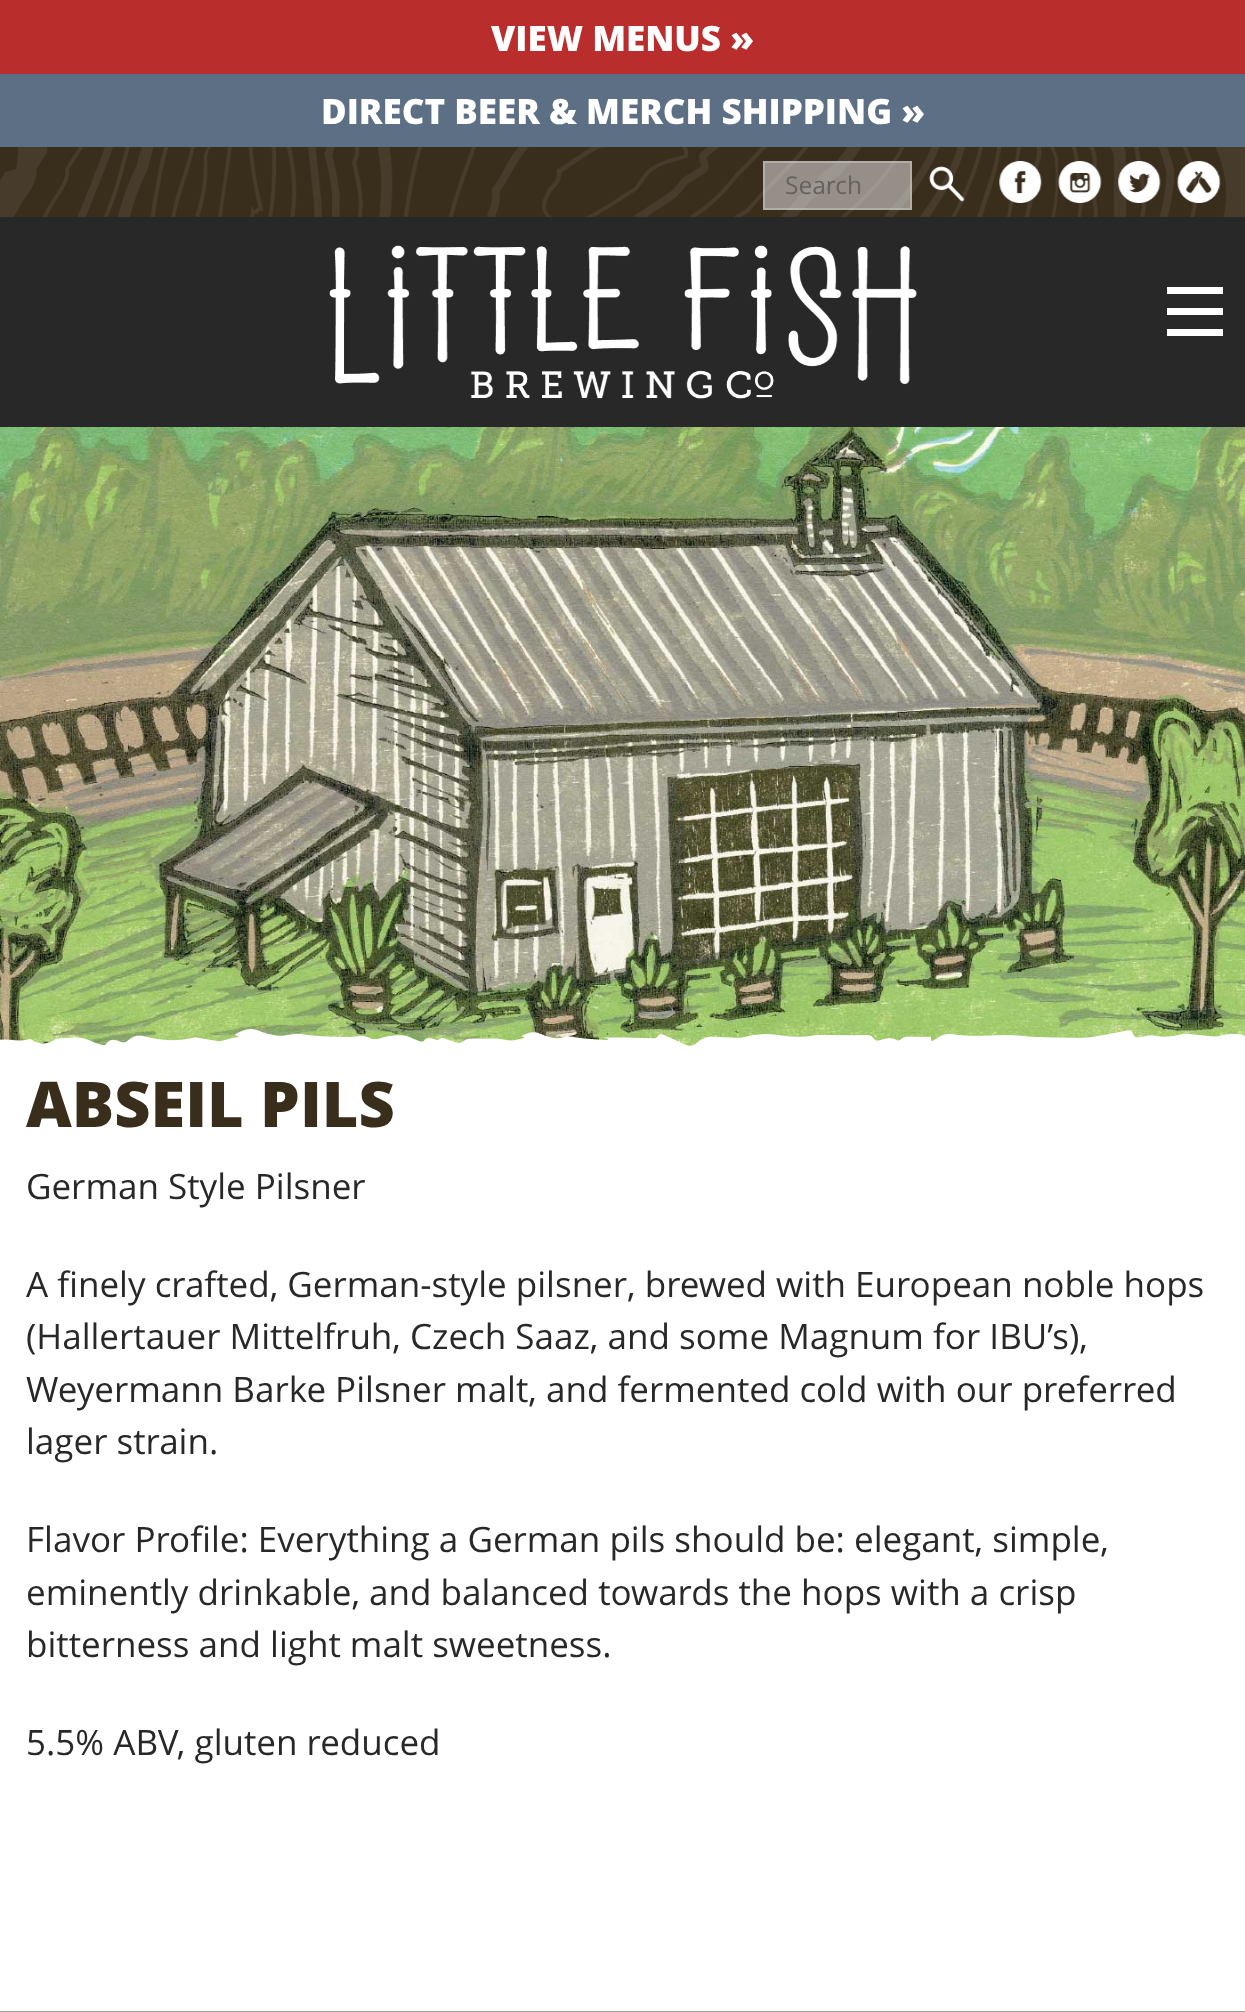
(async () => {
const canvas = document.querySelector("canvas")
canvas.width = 1245
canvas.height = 2012
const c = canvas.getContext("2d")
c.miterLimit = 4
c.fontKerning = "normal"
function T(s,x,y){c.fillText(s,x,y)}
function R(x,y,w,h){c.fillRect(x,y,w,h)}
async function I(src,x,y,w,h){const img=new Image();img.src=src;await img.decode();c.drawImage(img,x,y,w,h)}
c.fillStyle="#fff"
R(0,0,1245,2012)
c.fillStyle="#282828"
R(0,217,1245,210)
c.fillStyle="#ba2d2d"
R(0,0,1245,74)
c.font="800 35px Open Sans"
c.fillStyle="#fff"
T("VIEW MENUS »",491,51)
c.fillStyle="#5c6f84"
R(0,74,1245,73)
c.fillStyle="#fff"
T("DIRECT BEER & MERCH SHIPPING »",321,124)
c.fillStyle="#392d1c"
R(0,147,1245,70)
await I("1.png",0,147,1245,70)
c.fillStyle="#f2f2f280"
R(763,161,149,49)
c.strokeStyle="#cdcdcd80"
c.lineWidth=2
c.strokeRect(764,162,147,47)
c.font="24.5px Open Sans"
c.fillStyle="#65625d"
T("Search",785,194)
await I("2.png",929,166,36,36)
await I("3.png",999,161,43,42)
await I("4.png",1058,161,44,42)
await I("5.png",1118,161,43,42)
await I("6.png",1177,161,44,42)
await I("7.png",329,245,588,154)
c.fillStyle="#fff"
R(1167,308,56,7)
R(1167,287,56,7)
R(1167,329,56,7)
await I("8.png",0,427,1245,619)
await I("9.png",0,1029,1245,21)
c.font="800 63px Open Sans"
c.fillStyle="#392d1c"
T("ABSEIL PILS",26,1127)
c.font="35px Open Sans"
c.fillStyle="#282828"
T("German Style Pilsner",26,1199)
T("A finely crafted, German-style pilsner, brewed with European noble hops",26,1297)
T("(Hallertauer Mittelfruh, Czech Saaz, and some Magnum for IBU’s),",26,1349)
T("Weyermann Barke Pilsner malt, and fermented cold with our preferred",26,1402)
T("lager strain.",26,1454)
T("Flavor Profile: Everything a German pils should be: elegant, simple,",26,1552)
T("eminently drinkable, and balanced towards the hops with a crisp",26,1605)
T("bitterness and light malt sweetness.",26,1657)
T("5.5% ABV, gluten reduced",26,1755)
c.fillStyle="#a3a595"
R(0,2011,1245,1)
})()
